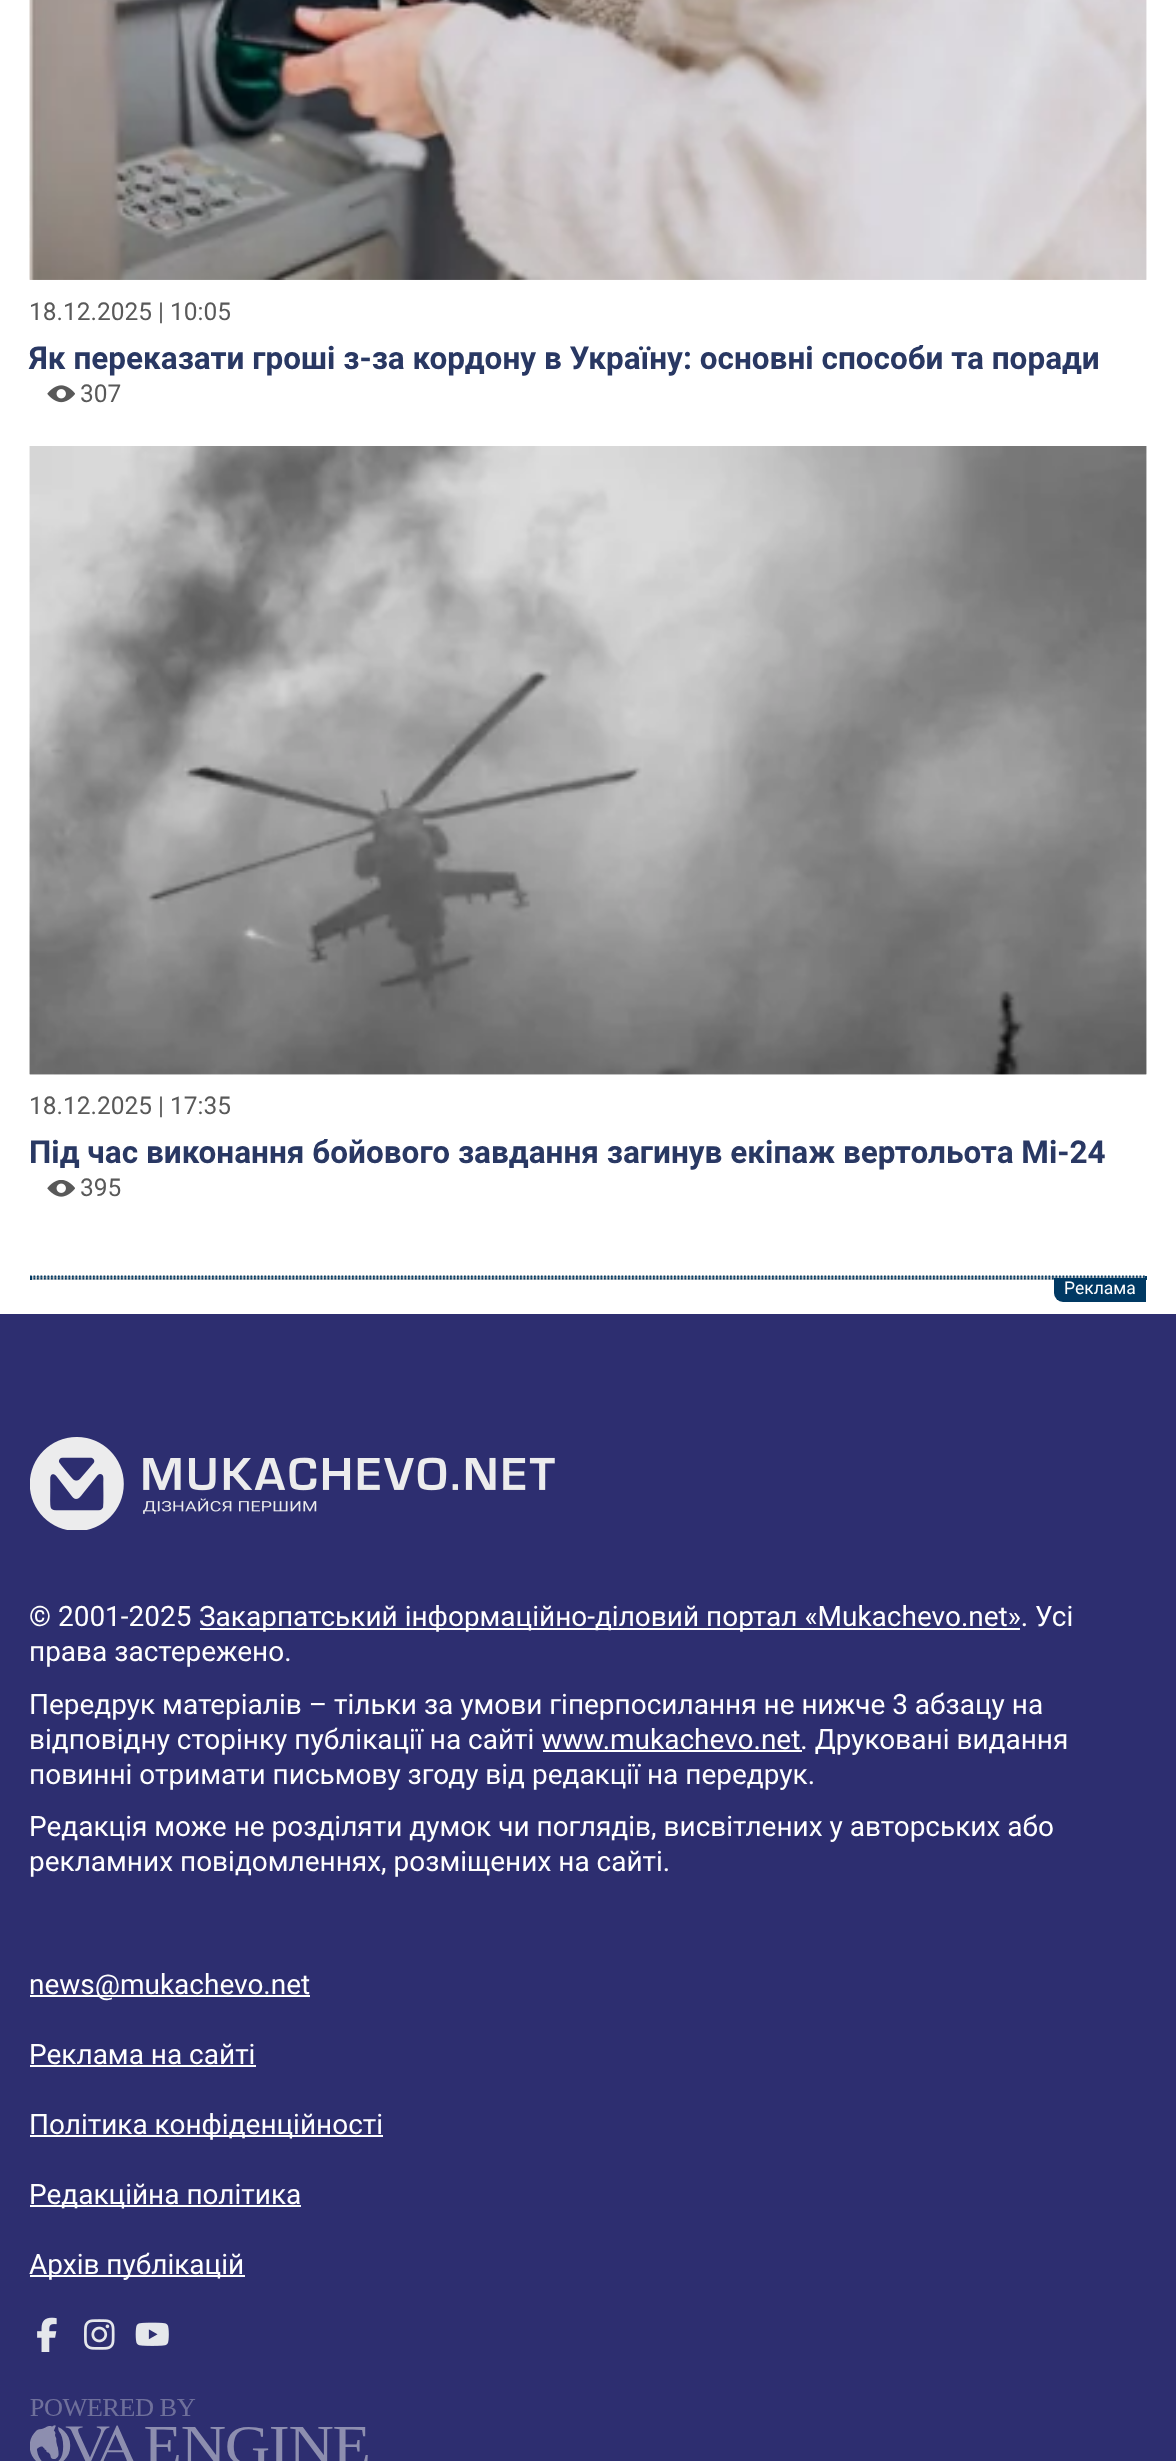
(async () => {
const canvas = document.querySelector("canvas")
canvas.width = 1176
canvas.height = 2461
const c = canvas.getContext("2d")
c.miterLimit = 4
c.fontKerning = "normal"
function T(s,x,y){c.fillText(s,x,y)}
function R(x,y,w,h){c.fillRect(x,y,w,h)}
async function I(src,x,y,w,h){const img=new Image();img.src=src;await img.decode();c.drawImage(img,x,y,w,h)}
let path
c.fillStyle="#fff"
R(0,0,1176,2461)
await I("1.png",29,0,1118,280)
await I("2.png",29,0,1118,280)
c.font="24.5px Roboto"
c.fillStyle="#595959"
T("18.12.2025 | 10:05",29,320)
c.font="bold 31.5px Roboto"
c.fillStyle="#293863"
T("Як переказати гроші з-за кордону в Україну: основні способи та поради",29,369)
await I("3.png",47,385,28,18)
c.font="24.5px Roboto"
c.fillStyle="#595959"
T("307",80,402)
await I("4.png",29,446,1118,629)
await I("5.png",29,446,1118,629)
T("18.12.2025 | 17:35",29,1114)
c.font="bold 31.5px Roboto"
c.fillStyle="#293863"
T("Під час виконання бойового завдання загинув екіпаж вертольота Мі-24",29,1163)
await I("6.png",47,1180,28,17)
c.font="24.5px Roboto"
c.fillStyle="#595959"
T("395",80,1196)
c.fillStyle="#ccc"
R(30,1276,1116,4)
path = new Path2D("M30 1276.5h1116")
c.strokeStyle="#003963"
c.lineWidth=1.8
c.setLineDash([1.75,1.75])
c.stroke(path)
c.fillStyle="#003963"
R(1145,1276,2,4)
path = new Path2D("M30 1278.5h1116")
c.stroke(path)
R(30,1276,2,4)
c.beginPath()
c.roundRect(1054,1278,92,24,[0,0,0,9])
c.fill()
c.font="17.5px Roboto"
c.fillStyle="#fff"
T("Реклама",1064,1294)
c.fillStyle="#2d2e70"
R(0,1314,1176,1147)
await I("7.png",30,1437,525,93)
c.font="28px Roboto"
c.fillStyle="#fff"
T("© 2001-2025",29,1626)
R(200,1628,820,2)
T("Закарпатський інформаційно-діловий портал «Mukachevo.net». Усі",199,1626)
T("права застережено.",29,1661)
T("Передрук матеріалів – тільки за умови гіперпосилання не нижче 3 абзацу на",29,1714)
T("відповідну сторінку публікації на сайті www.mukachevo.net. Друковані видання",29,1749)
R(543,1750,259,2)
T("повинні отримати письмову згоду від редакції на передрук.",29,1784)
T("Редакція може не розділяти думок чи поглядів, висвітлених у авторських або",29,1836)
T("рекламних повідомленнях, розміщених на сайті.",29,1871)
R(30,1995,280,2)
T("news@mukachevo.net",29,1994)
T("Реклама на сайті",29,2064)
R(30,2065,226,2)
R(30,2135,353,2)
T("Політика конфіденційності",29,2134)
R(30,2205,271,2)
T("Редакційна політика",29,2204)
R(30,2275,215,2)
T("Архів публікацій",29,2274)
await I("8.png",37,2317,20,35)
await I("9.png",84,2319,31,31)
await I("10.png",135,2322,34,24)
await I("11.png",30,2399,338,62)
})()
